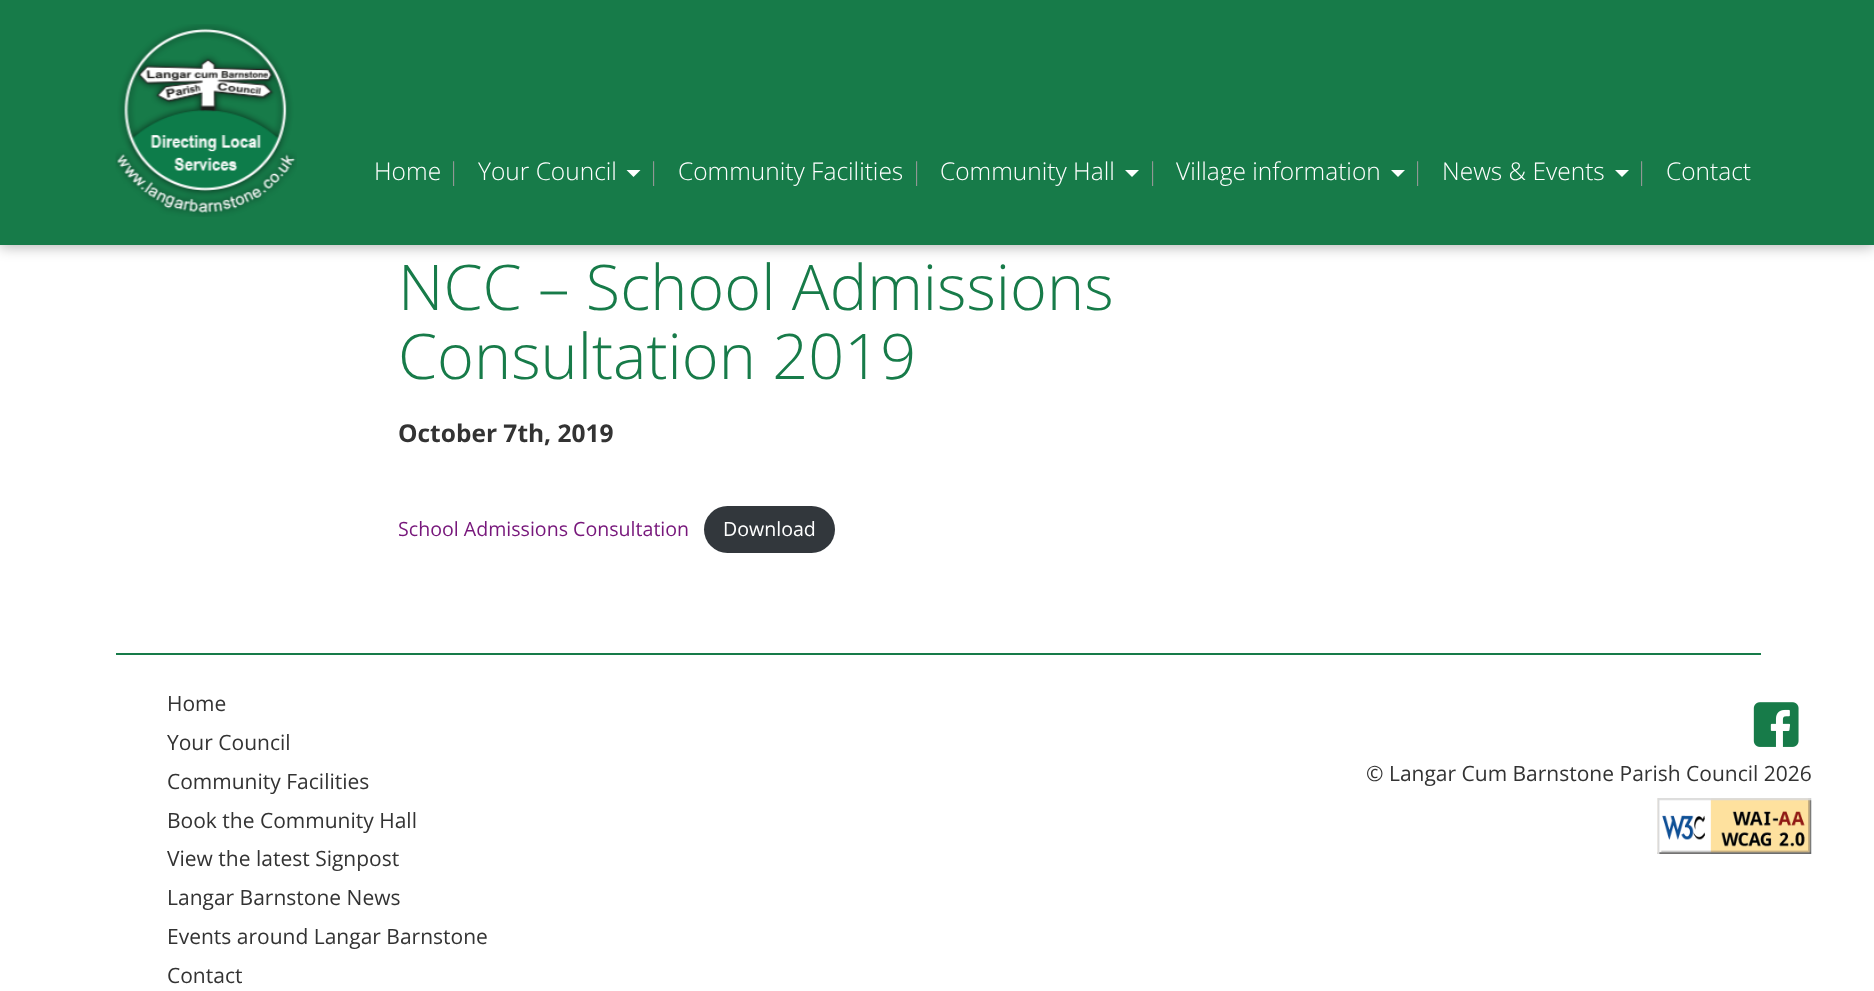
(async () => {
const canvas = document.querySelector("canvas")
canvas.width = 1874
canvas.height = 991
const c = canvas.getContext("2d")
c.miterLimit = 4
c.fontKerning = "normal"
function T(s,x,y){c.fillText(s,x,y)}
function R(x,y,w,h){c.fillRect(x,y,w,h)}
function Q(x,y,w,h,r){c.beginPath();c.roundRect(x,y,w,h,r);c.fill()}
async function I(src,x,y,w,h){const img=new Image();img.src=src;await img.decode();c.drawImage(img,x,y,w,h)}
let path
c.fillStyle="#fff"
R(0,0,1874,991)
c.fillStyle="#0000004a"
c.filter="blur(7px)"
c.beginPath()
c.rect(0,2,1874,245)
c.fill()
c.filter="none"
c.fillStyle="#177b49"
R(0,0,1874,245)
await I("1.png",115,24,182,193)
c.font="300 24.5px Open Sans"
c.fillStyle="#fff"
T("Home",374,180)
c.fillStyle="#999"
T("|",447,180)
c.fillStyle="#fff"
T("Your Council",478,180)
path = new Path2D("M626.5 170h14l-7 7z")
c.fill(path)
c.fillStyle="#999"
T("|",647,180)
c.fillStyle="#fff"
T("Community Facilities",678,180)
c.fillStyle="#999"
T("|",910,180)
c.fillStyle="#fff"
T("Community Hall",940,180)
path = new Path2D("M1125 170h14l-7 7z")
c.fill(path)
c.fillStyle="#999"
T("|",1146,180)
c.fillStyle="#fff"
T("Village information",1176,180)
path = new Path2D("M1391 170h14l-7 7z")
c.fill(path)
c.fillStyle="#999"
T("|",1411,180)
c.fillStyle="#fff"
T("News & Events",1442,180)
path = new Path2D("M1615 170h14l-7 7z")
c.fill(path)
c.fillStyle="#999"
T("|",1635,180)
c.fillStyle="#fff"
T("Contact",1666,180)
c.font="300 63px Open Sans"
c.fillStyle="#177b49"
T("NCC – School Admissions",398,310)
T("Consultation 2019",398,379)
c.font="bold 24.5px Open Sans"
c.fillStyle="#333"
T("October 7th, 2019",398,442)
c.font="19.6px Open Sans"
c.fillStyle="#77177b"
T("School Admissions Consultation",398,536)
c.fillStyle="#32373c"
Q(704,506,131,47,23.5)
c.fillStyle="#fff"
T("Download",723,536)
c.fillStyle="#177b49"
R(116,653,1645,2)
c.font="21px Open Sans"
c.fillStyle="#333"
T("Home",167,711)
T("Your Council",167,750)
T("Community Facilities",167,789)
T("Book the Community Hall",167,828)
T("View the latest Signpost",167,866)
T("Langar Barnstone News",167,905)
T("Events around Langar Barnstone",167,944)
T("Contact",167,983)
await I("2.png",1753,702,46,45)
T("© Langar Cum Barnstone Parish Council 2026",1366,781)
await I("3.png",1657,798,155,56)
})()
